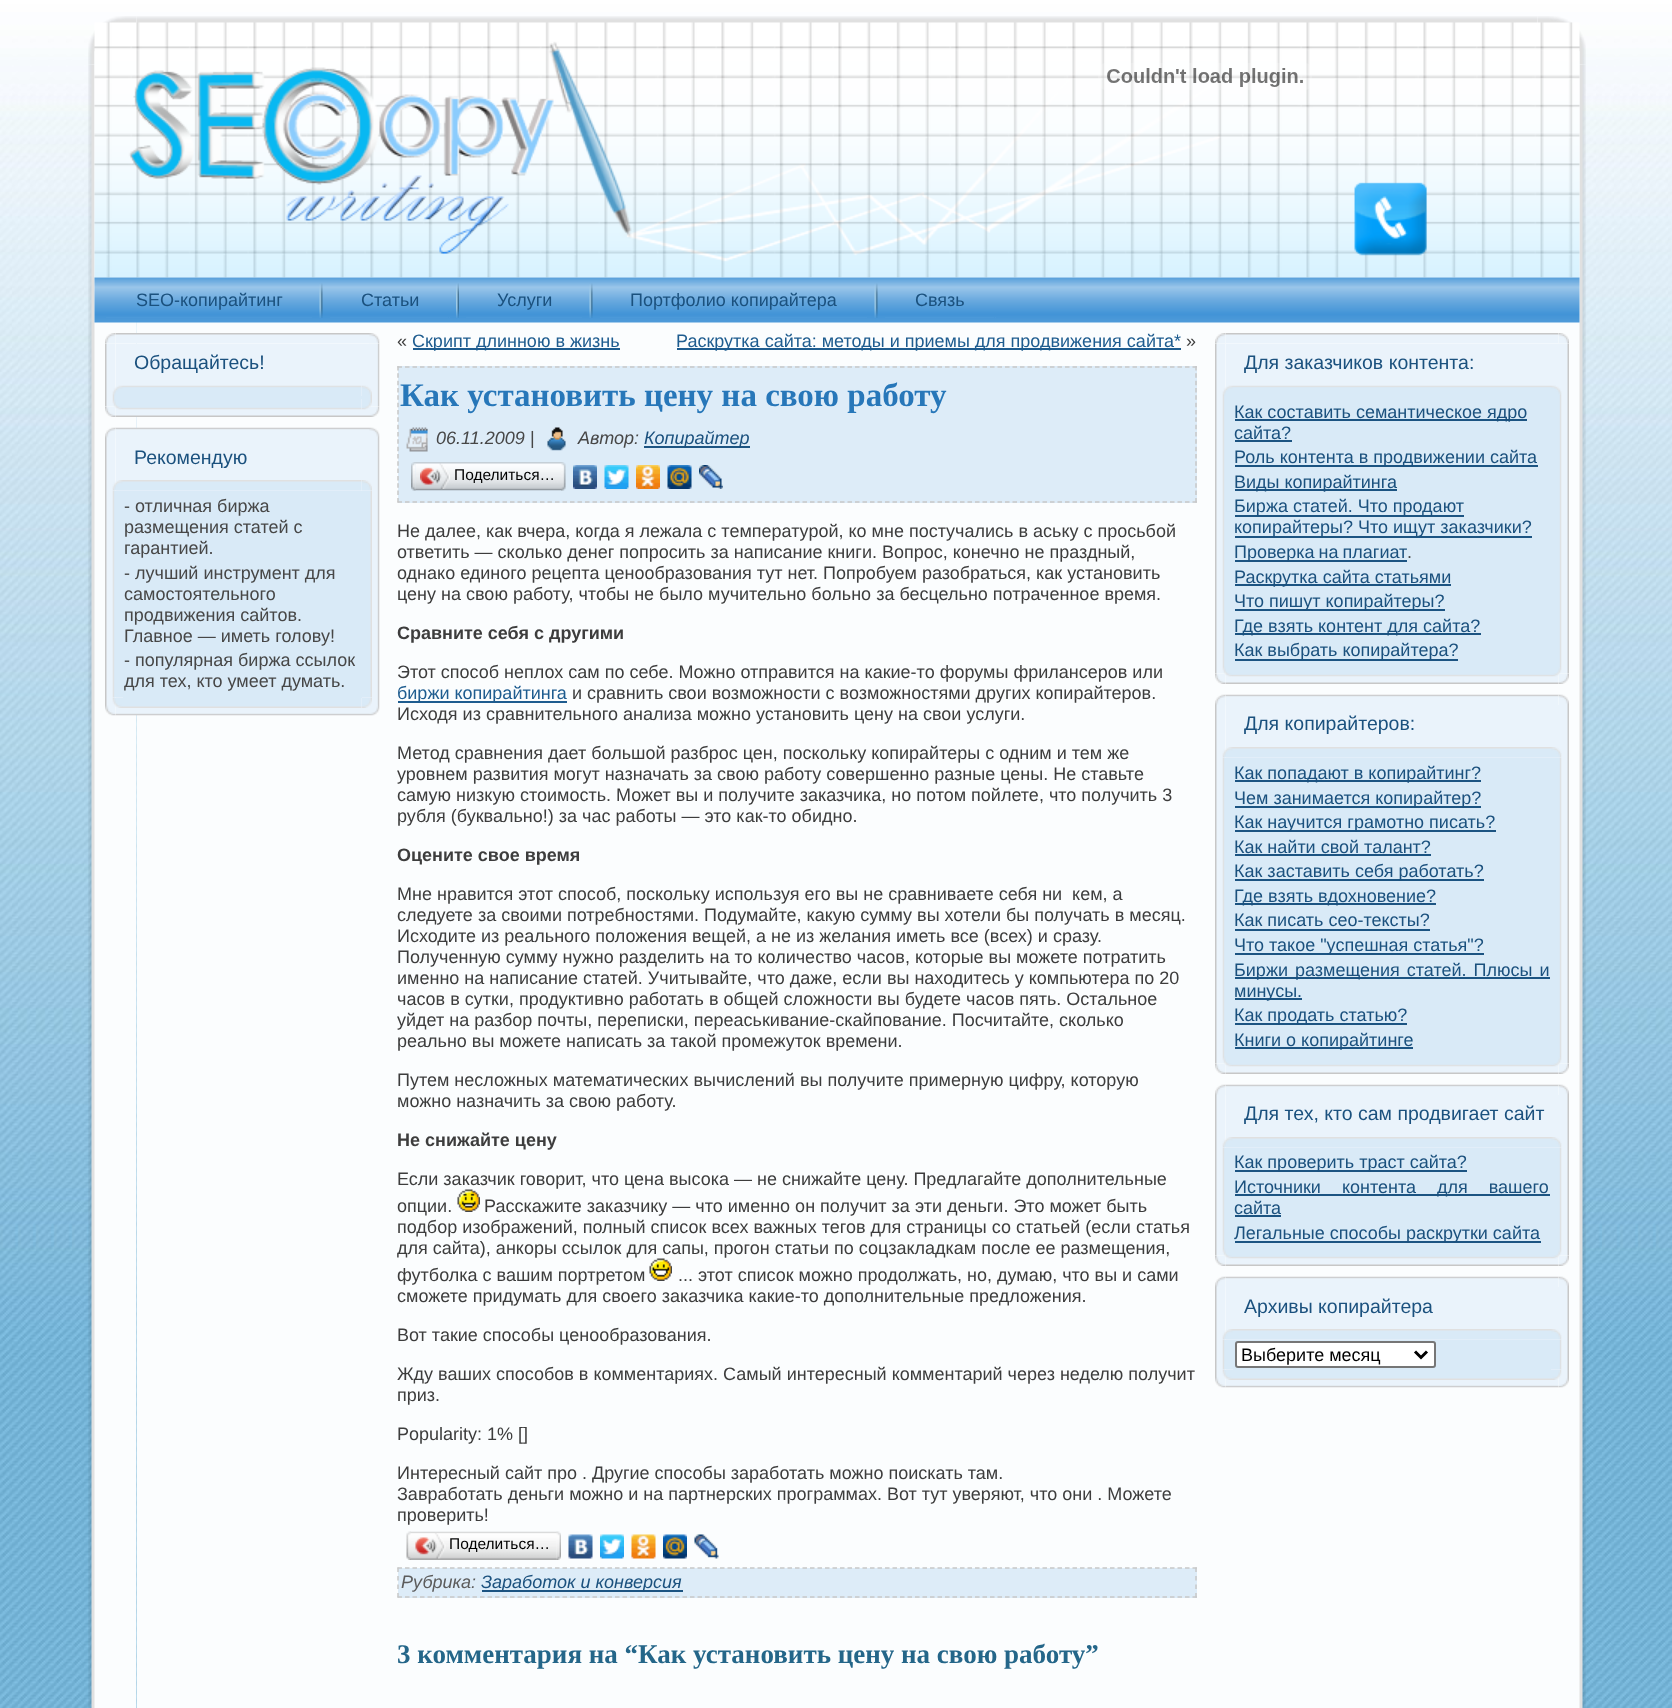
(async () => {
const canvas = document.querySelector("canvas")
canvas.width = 1672
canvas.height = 1708
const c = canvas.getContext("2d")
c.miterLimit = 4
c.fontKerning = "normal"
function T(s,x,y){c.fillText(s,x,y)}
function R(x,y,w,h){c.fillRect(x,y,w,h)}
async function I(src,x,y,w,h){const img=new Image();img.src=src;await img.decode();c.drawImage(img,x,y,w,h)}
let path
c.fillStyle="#fff"
R(0,0,1672,1708)
await I("1.png",0,1350,1672,358)
await I("2.png",0,0,1672,1350)
await I("3.png",88,16,49,49)
await I("5.png",1537,16,49,49)
await I("4.png",136,16,1402,7)
await I("6.png",88,64,49,1644)
c.fillStyle="#fbfdfe"
R(137,277,1401,1431)
await I("7.png",1538,64,48,1644)
await I("8.png",94,22,1486,256)
await I("9.png",1098,63,214,27)
await I("10.png",1354,182,73,74)
await I("11.png",94,277,1486,46)
c.font="18px Liberation Sans"
c.fillStyle="#1b517e"
T("SEO-копирайтинг",136,306)
await I("12.png",106,317,206,1)
await I("13.png",319,283,4,35)
T("Статьи",361,306)
await I("14.png",330,317,118,1)
c.fillStyle="#4c99d9"
R(449,317,1,1)
await I("15.png",456,283,3,35)
c.fillStyle="#1b517e"
T("Услуги",497,306)
await I("16.png",466,317,116,1)
await I("13.png",589,283,4,35)
T("Портфолио копирайтера",630,306)
await I("17.png",600,317,267,1)
await I("13.png",874,283,4,35)
T("Связь",915,306)
await I("18.png",885,317,109,1)
c.fillStyle="#4c99d9"
R(995,317,1,1)
await I("19.png",105,333,11,11)
await I("20.png",115,333,254,11)
await I("21.png",369,333,11,11)
await I("32.png",105,406,11,11)
await I("33.png",115,406,254,11)
await I("22.png",105,343,11,64)
c.fillStyle="#eaf3fb"
R(116,344,253,63)
await I("34.png",369,406,11,11)
await I("23.png",369,343,11,64)
c.font="19.5px Liberation Sans"
c.fillStyle="#1b517e"
T("Обращайтесь!",134,369)
await I("24.png",112,385,11,11)
await I("25.png",123,385,238,11)
await I("26.png",361,385,11,11)
await I("27.png",112,396,11,3)
c.fillStyle="#d9eaf7"
R(123,396,239,3)
await I("28.png",362,396,10,3)
await I("29.png",112,399,11,11)
await I("30.png",123,399,238,11)
await I("31.png",361,399,11,11)
await I("35.png",105,427,11,11)
await I("36.png",115,427,254,11)
await I("37.png",369,427,11,11)
await I("38.png",105,438,11,267)
c.fillStyle="#eaf3fb"
R(116,438,253,267)
await I("39.png",369,438,11,267)
c.fillStyle="#1b517e"
T("Рекомендую",134,464)
await I("40.png",112,480,11,11)
await I("41.png",123,480,238,11)
await I("42.png",361,480,11,11)
await I("43.png",112,491,11,206)
await I("48.png",105,705,11,11)
await I("49.png",115,705,254,11)
await I("50.png",369,705,11,11)
await I("47.png",361,697,11,11)
c.fillStyle="#d9eaf7"
R(123,491,239,207)
await I("44.png",362,491,10,206)
c.font="18px Liberation Sans"
c.fillStyle="#474747"
T("- отличная биржа",124,512)
T("размещения статей с",124,533)
T("гарантией.",124,554)
T("- лучший инструмент для",124,579)
T("самостоятельного",124,600)
T("продвижения сайтов.",124,621)
T("Главное — иметь голову!",124,642)
T("- популярная биржа ссылок",124,666)
T("для тех, кто умеет думать.",124,687)
await I("45.png",112,697,11,11)
await I("46.png",123,698,238,10)
c.fillStyle="#3d3d3d"
T("«",397,347)
c.fillStyle="#1e5c8f"
R(413,348,207,2)
T("Скрипт длинною в жизнь",412,347)
R(677,348,504,2)
T("Раскрутка сайта: методы и приемы для продвижения сайта*",676,347)
c.fillStyle="#3d3d3d"
T("»",1186,347)
c.fillStyle="#ddecf8"
R(398,366,799,137)
path = new Path2D("M397.5 367h799.5")
c.strokeStyle="#c7c7c7"
c.lineWidth=1.5
c.setLineDash([4.5,3])
c.stroke(path)
path = new Path2D("M1196 366v136.5")
c.setLineDash([4.5,2.83])
c.stroke(path)
path = new Path2D("M397.5 502h799.5")
c.setLineDash([4.5,3])
c.stroke(path)
path = new Path2D("M398 366v136.5")
c.setLineDash([4.5,2.83])
c.stroke(path)
c.font="bold 33px Liberation Serif"
c.fillStyle="#2777b9"
T("Как установить цену на свою работу",400,406)
await I("51.png",406,427,22,25)
c.font="italic 18px Liberation Sans"
c.fillStyle="#474747"
T("06.11.2009 |",436,444)
await I("52.png",547,427,19,24)
T("Автор:",578,444)
c.fillStyle="#1c5482"
R(644,446,106,2)
c.fillStyle="#1b517e"
T("Копирайтер",644,444)
await I("53.png",415,462,146,29)
await I("54.png",411,462,5,29)
await I("55.png",420,463,30,26)
c.font="15.5px Liberation Sans"
c.fillStyle="#000"
T("Поделиться…",454,480)
await I("56.png",561,462,5,29)
await I("57.png",573,465,24,24)
await I("58.png",604,465,25,24)
await I("59.png",636,465,24,24)
await I("60.png",667,465,25,24)
await I("61.png",699,465,24,24)
c.font="18px Liberation Sans"
c.fillStyle="#3d3d3d"
T("Не далее, как вчера, когда я лежала с температурой, ко мне постучались в аську с просьбой",397,537)
T("ответить — сколько денег попросить за написание книги. Вопрос, конечно не праздный,",397,558)
T("однако единого рецепта ценообразования тут нет. Попробуем разобраться, как установить",397,579)
T("цену на свою работу, чтобы не было мучительно больно за бесцельно потраченное время.",397,600)
c.font="bold 18px Liberation Sans"
T("Сравните себя с другими",397,639)
c.font="18px Liberation Sans"
T("Этот способ неплох сам по себе. Можно отправится на какие-то форумы фрилансеров или",397,678)
c.fillStyle="#1e5c8f"
R(398,701,169,2)
T("биржи копирайтинга",397,699)
c.fillStyle="#3d3d3d"
T("и сравнить свои возможности с возможностями других копирайтеров.",572,699)
T("Исходя из сравнительного анализа можно установить цену на свои услуги.",397,720)
T("Метод сравнения дает большой разброс цен, поскольку копирайтеры с одним и тем же",397,759)
T("уровнем развития могут назначать за свою работу совершенно разные цены. Не ставьте",397,780)
T("самую низкую стоимость. Может вы и получите заказчика, но потом пойлете, что получить 3",397,801)
T("рубля (буквально!) за час работы — это как-то обидно.",397,822)
c.font="bold 18px Liberation Sans"
T("Оцените свое время",397,861)
c.font="18px Liberation Sans"
T("Мне нравится этот способ, поскольку используя его вы не сравниваете себя ни  кем, а",397,900)
T("следуете за своими потребностями. Подумайте, какую сумму вы хотели бы получать в месяц.",397,921)
T("Исходите из реального положения вещей, а не из желания иметь все (всех) и сразу.",397,942)
T("Полученную сумму нужно разделить на то количество часов, которые вы можете потратить",397,963)
T("именно на написание статей. Учитывайте, что даже, если вы находитесь у компьютера по 20",397,984)
T("часов в сутки, продуктивно работать в общей сложности вы будете часов пять. Остальное",397,1005)
T("уйдет на разбор почты, переписки, переаськивание-скайпование. Посчитайте, сколько",397,1026)
T("реально вы можете написать за такой промежуток времени.",397,1047)
T("Путем несложных математических вычислений вы получите примерную цифру, которую",397,1086)
T("можно назначить за свою работу.",397,1107)
c.font="bold 18px Liberation Sans"
T("Не снижайте цену",397,1146)
c.font="18px Liberation Sans"
T("Если заказчик говорит, что цена высока — не снижайте цену. Предлагайте дополнительные",397,1185)
T("опции.",397,1212)
await I("62.png",457,1189,23,23)
T("Расскажите заказчику — что именно он получит за эти деньги. Это может быть",484,1212)
T("подбор изображений, полный список всех важных тегов для страницы со статьей (если статья",397,1233)
T("для сайта), анкоры ссылок для сапы, прогон статьи по соцзакладкам после ее размещения,",397,1254)
T("футболка с вашим портретом",397,1281)
await I("63.png",649,1258,23,23)
T("... этот список можно продолжать, но, думаю, что вы и сами",678,1281)
T("сможете придумать для своего заказчика какие-то дополнительные предложения.",397,1302)
T("Вот такие способы ценообразования.",397,1341)
T("Жду ваших способов в комментариях. Самый интересный комментарий через неделю получит",397,1380)
T("приз.",397,1401)
T("Popularity: 1% []",397,1440)
T("Интересный сайт про . Другие способы заработать можно поискать там.",397,1479)
T("Завработать деньги можно и на партнерских программах. Вот тут уверяют, что они . Можете",397,1500)
T("проверить!",397,1521)
await I("64.png",411,1531,146,29)
await I("65.png",406,1531,5,29)
await I("66.png",415,1533,31,26)
c.font="15.5px Liberation Sans"
c.fillStyle="#000"
T("Поделиться…",449,1549)
await I("67.png",556,1531,5,29)
await I("68.png",568,1534,25,25)
await I("69.png",600,1534,24,25)
await I("70.png",631,1534,25,25)
await I("71.png",663,1534,24,25)
await I("72.png",694,1534,25,25)
c.fillStyle="#ddecf8"
R(398,1568,799,30)
path = new Path2D("M397.5 1568h799.5")
c.setLineDash([4.5,3])
c.stroke(path)
path = new Path2D("M1196 1567.5v30")
c.setLineDash([4.5,4])
c.stroke(path)
path = new Path2D("M397.5 1597h799.5")
c.setLineDash([4.5,3])
c.stroke(path)
path = new Path2D("M398 1567.5v30")
c.setLineDash([4.5,4])
c.stroke(path)
c.font="italic 18px Liberation Sans"
c.fillStyle="#5c5c5c"
T("Рубрика:",401,1588)
c.fillStyle="#1c5482"
R(482,1590,201,2)
c.fillStyle="#1b517e"
T("Заработок и конверсия",481,1588)
c.font="bold 27px Liberation Serif"
c.fillStyle="#246689"
T("3 комментария на “Как установить цену на свою работу”",397,1663)
await I("73.png",1215,333,11,11)
await I("75.png",1558,333,11,11)
await I("74.png",1225,333,334,11)
await I("85.png",1215,673,11,11)
await I("87.png",1558,673,11,11)
await I("86.png",1225,673,334,11)
await I("76.png",1215,343,11,331)
await I("77.png",1558,343,11,331)
c.fillStyle="#eaf3fb"
R(1226,344,333,330)
c.font="19.5px Liberation Sans"
c.fillStyle="#1b517e"
T("Для заказчиков контента:",1244,369)
await I("24.png",1222,385,11,11)
await I("78.png",1233,385,318,11)
await I("79.png",1551,385,11,11)
await I("80.png",1222,396,11,270)
c.fillStyle="#d9eaf7"
R(1233,396,318,270)
await I("81.png",1551,396,11,270)
c.fillStyle="#1c5482"
R(1235,419,292,2)
c.font="18px Liberation Sans"
c.fillStyle="#1b517e"
T("Как составить семантическое ядро",1234,418)
T("сайта?",1234,439)
c.fillStyle="#1c5482"
R(1235,440,57,2)
R(1235,465,303,2)
c.fillStyle="#1b517e"
T("Роль контента в продвижении сайта",1234,463)
c.fillStyle="#1c5482"
R(1235,489,162,2)
c.fillStyle="#1b517e"
T("Виды копирайтинга",1234,488)
c.fillStyle="#1c5482"
R(1235,515,229,2)
c.fillStyle="#1b517e"
T("Биржа статей. Что продают",1234,512)
c.fillStyle="#1c5482"
R(1235,536,297,2)
c.fillStyle="#1b517e"
T("копирайтеры? Что ищут заказчики?",1234,533)
c.fillStyle="#1c5482"
R(1235,560,172,2)
c.wordSpacing="-1px"
c.fillStyle="#1b517e"
T("Проверка на плагиат",1234,558)
c.wordSpacing="0px"
c.fillStyle="#474747"
T(".",1407,558)
c.fillStyle="#1c5482"
R(1235,584,216,2)
c.fillStyle="#1b517e"
T("Раскрутка сайта статьями",1234,583)
c.fillStyle="#1c5482"
R(1235,609,210,2)
c.fillStyle="#1b517e"
T("Что пишут копирайтеры?",1234,607)
c.fillStyle="#1c5482"
R(1235,633,246,2)
c.fillStyle="#1b517e"
T("Где взять контент для сайта?",1234,632)
c.fillStyle="#1c5482"
R(1235,659,223,2)
c.fillStyle="#1b517e"
T("Как выбрать копирайтера?",1234,656)
await I("82.png",1222,666,11,11)
await I("83.png",1233,666,318,11)
await I("84.png",1551,666,11,11)
await I("88.png",1215,694,11,11)
await I("90.png",1558,694,11,11)
await I("89.png",1225,694,334,11)
await I("85.png",1215,1063,11,11)
await I("87.png",1558,1063,11,11)
await I("97.png",1225,1063,334,11)
await I("91.png",1215,705,11,359)
c.fillStyle="#eaf3fb"
R(1226,705,333,359)
await I("92.png",1559,705,10,359)
c.font="19.5px Liberation Sans"
c.fillStyle="#1b517e"
T("Для копирайтеров:",1244,730)
await I("40.png",1222,747,11,11)
await I("93.png",1233,747,318,11)
await I("94.png",1551,747,11,11)
await I("95.png",1222,758,11,298)
c.fillStyle="#d9eaf7"
R(1233,758,318,298)
await I("96.png",1551,758,11,298)
c.fillStyle="#1c5482"
R(1235,780,246,2)
c.font="18px Liberation Sans"
c.fillStyle="#1b517e"
T("Как попадают в копирайтинг?",1234,779)
c.fillStyle="#1c5482"
R(1235,806,246,2)
c.fillStyle="#1b517e"
T("Чем занимается копирайтер?",1234,804)
c.fillStyle="#1c5482"
R(1235,830,261,2)
c.fillStyle="#1b517e"
T("Как научится грамотно писать?",1234,828)
T("Как найти свой талант?",1234,853)
c.fillStyle="#1c5482"
R(1235,854,196,2)
R(1235,879,249,2)
c.fillStyle="#1b517e"
T("Как заставить себя работать?",1234,877)
c.fillStyle="#1c5482"
R(1235,903,201,2)
c.fillStyle="#1b517e"
T("Где взять вдохновение?",1234,902)
T("Как писать сео-тексты?",1234,926)
c.fillStyle="#1c5482"
R(1235,929,195,2)
R(1235,953,249,2)
c.fillStyle="#1b517e"
T("Что такое \"успешная статья\"?",1234,951)
c.fillStyle="#1c5482"
R(1235,977,315,2)
c.wordSpacing="2px"
c.fillStyle="#1b517e"
T("Биржи размещения статей. Плюсы и",1234,976)
c.fillStyle="#1c5482"
R(1235,998,67,2)
c.wordSpacing="0px"
c.fillStyle="#1b517e"
T("минусы.",1234,997)
c.fillStyle="#1c5482"
R(1235,1023,172,2)
c.fillStyle="#1b517e"
T("Как продать статью?",1234,1021)
c.fillStyle="#1c5482"
R(1235,1047,178,2)
c.fillStyle="#1b517e"
T("Книги о копирайтинге",1234,1046)
await I("82.png",1222,1056,11,11)
await I("83.png",1233,1056,318,11)
await I("84.png",1551,1056,11,11)
await I("88.png",1215,1084,11,11)
await I("90.png",1558,1084,11,11)
await I("89.png",1225,1084,334,11)
await I("85.png",1215,1255,11,11)
await I("87.png",1558,1255,11,11)
await I("97.png",1225,1255,334,11)
await I("98.png",1215,1095,11,161)
c.fillStyle="#eaf3fb"
R(1226,1095,333,161)
await I("99.png",1559,1095,10,161)
c.font="19.5px Liberation Sans"
c.fillStyle="#1b517e"
T("Для тех, кто сам продвигает сайт",1244,1120)
await I("40.png",1222,1137,11,11)
await I("93.png",1233,1137,318,11)
await I("94.png",1551,1137,11,11)
await I("100.png",1222,1148,11,100)
c.fillStyle="#d9eaf7"
R(1233,1148,318,100)
await I("101.png",1551,1148,11,100)
c.fillStyle="#1c5482"
R(1235,1170,232,2)
c.font="18px Liberation Sans"
c.fillStyle="#1b517e"
T("Как проверить траст сайта?",1234,1168)
c.fillStyle="#1c5482"
R(1235,1194,315,2)
c.wordSpacing="16px"
c.fillStyle="#1b517e"
T("Источники контента для вашего",1234,1193)
c.wordSpacing="0px"
T("сайта",1234,1214)
c.fillStyle="#1c5482"
R(1235,1215,46,2)
R(1235,1241,306,2)
c.fillStyle="#1b517e"
T("Легальные способы раскрутки сайта",1234,1239)
await I("82.png",1222,1248,11,11)
await I("83.png",1233,1248,318,11)
await I("84.png",1551,1248,11,11)
await I("88.png",1215,1276,11,11)
await I("90.png",1558,1276,11,11)
await I("89.png",1225,1276,334,11)
await I("102.png",1215,1287,11,90)
c.fillStyle="#eaf3fb"
R(1226,1287,333,90)
await I("103.png",1559,1287,10,90)
c.font="19.5px Liberation Sans"
c.fillStyle="#1b517e"
T("Архивы копирайтера",1244,1313)
await I("40.png",1222,1329,11,11)
await I("104.png",1233,1329,318,11)
await I("94.png",1551,1329,11,11)
await I("105.png",1222,1340,11,29)
c.fillStyle="#d9eaf7"
R(1233,1340,318,30)
await I("106.png",1551,1340,11,29)
c.fillStyle="#fff"
c.beginPath()
c.roundRect(1236,1342,199,25,2)
c.fill()
c.strokeStyle="#767676"
c.lineWidth=2
c.setLineDash([])
c.stroke()
path = new Path2D("M1415 1351.5l6 6l6-6")
c.strokeStyle="#000"
c.lineWidth=3
c.stroke(path)
c.font="18px Liberation Sans"
c.fillStyle="#000"
T("Выберите месяц",1241,1361)
await I("109.png",1215,1377,11,11)
await I("111.png",1558,1377,11,11)
await I("110.png",1225,1377,334,11)
await I("45.png",1222,1369,11,11)
await I("107.png",1233,1370,318,10)
await I("108.png",1551,1369,11,11)
})()
